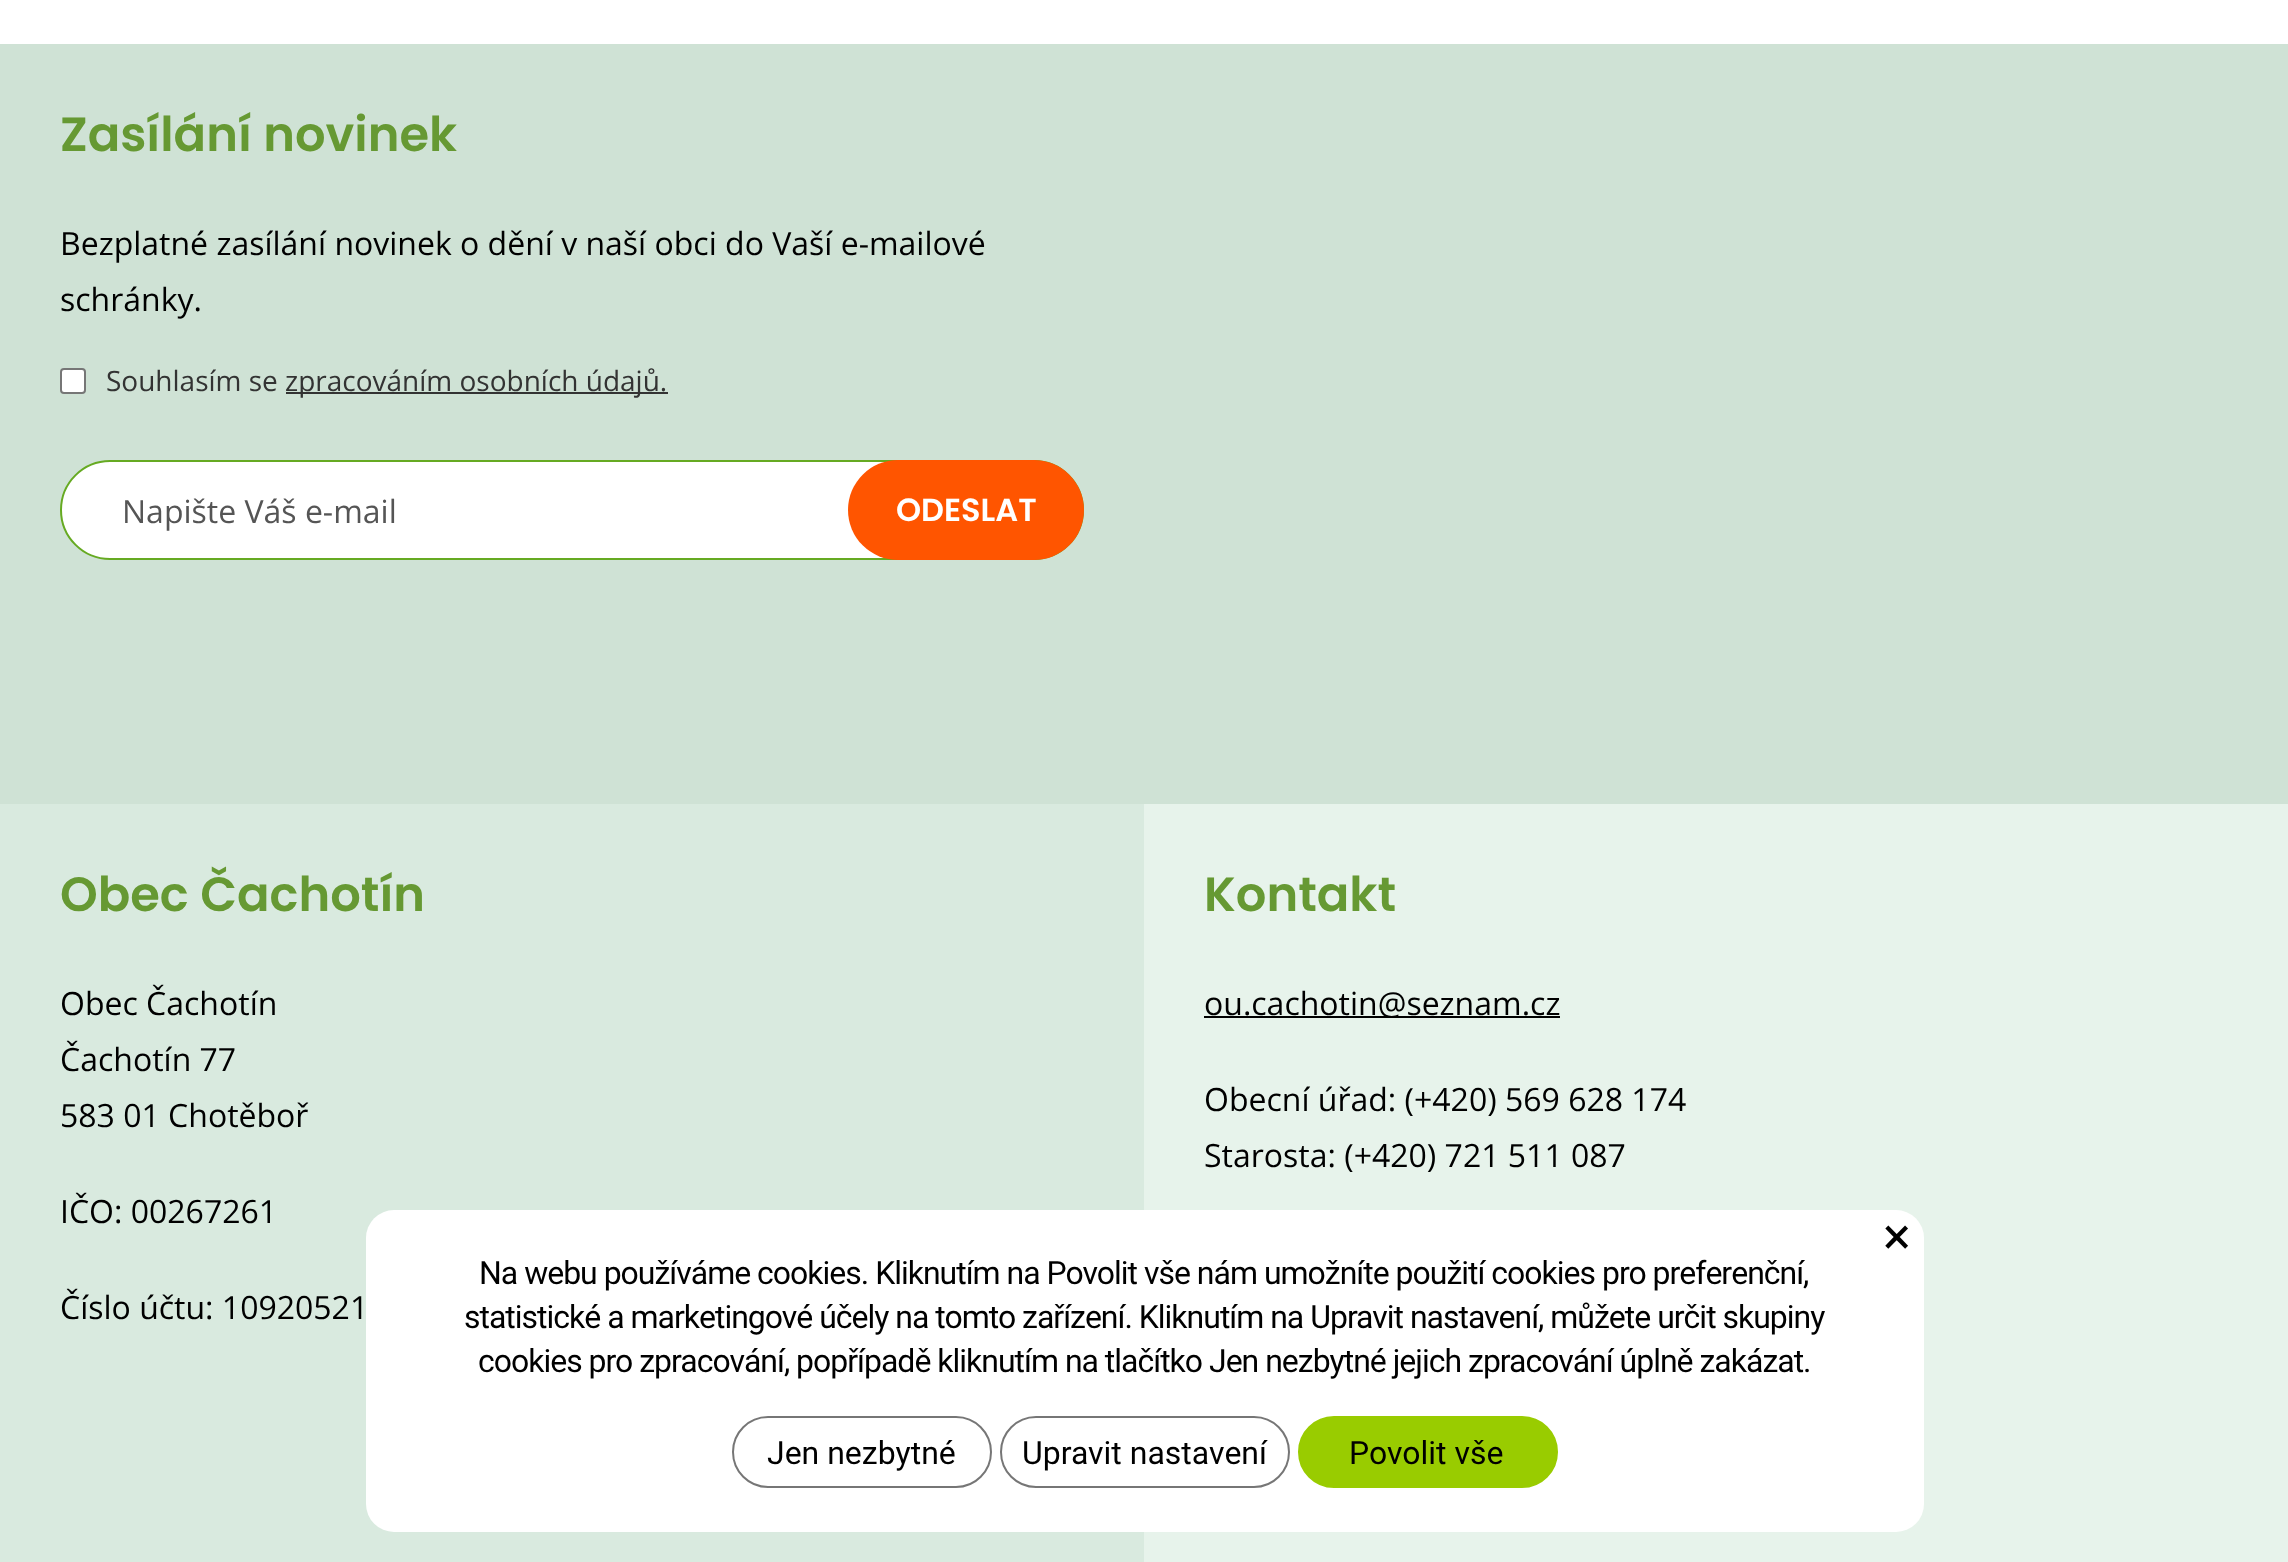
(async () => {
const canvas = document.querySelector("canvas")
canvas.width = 2288
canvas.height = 1562
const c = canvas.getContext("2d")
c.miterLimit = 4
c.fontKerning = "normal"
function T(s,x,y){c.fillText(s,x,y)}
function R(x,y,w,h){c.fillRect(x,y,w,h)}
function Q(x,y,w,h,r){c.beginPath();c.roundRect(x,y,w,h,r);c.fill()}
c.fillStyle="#fff"
R(0,0,2288,1562)
c.fillStyle="#e7f3eb"
R(1144,804,1144,758)
c.fillStyle="#cfe2d5"
R(0,44,2288,760)
c.font="600 48px Poppins"
c.fillStyle="#693"
T("Zasílání novinek",60,151)
c.font="32px Open Sans"
c.fillStyle="#000"
T("Bezplatné zasílání novinek o dění v naší obci do Vaší e-mailové",60,255)
T("schránky.",60,311)
c.fillStyle="#fff"
c.beginPath()
c.roundRect(61,369,24,24,3)
c.fill()
c.strokeStyle="#767676"
c.lineWidth=2
c.stroke()
c.font="28px Open Sans"
c.fillStyle="#333"
T("Souhlasím se",106,391)
R(286,392,382,2)
T("zpracováním osobních údajů.",285,391)
c.fillStyle="#fff"
c.beginPath()
c.roundRect(61,461,1022,98,49)
c.fill()
c.strokeStyle="#6a2"
c.stroke()
c.font="32px Open Sans"
c.fillStyle="#555"
T("Napište Váš e-mail",122,523)
c.fillStyle="#f50"
Q(848,460,236,100,50)
c.font="600 32px Poppins"
c.fillStyle="#fff"
T("ODESLAT",896,521)
c.fillStyle="#d9eadf"
R(0,804,1144,758)
c.font="600 48px Poppins"
c.fillStyle="#693"
T("Obec Čachotín",60,911)
c.font="32px Open Sans"
c.fillStyle="#000"
T("Obec Čachotín",60,1015)
T("Čachotín 77",60,1071)
T("583 01 Chotěboř",60,1127)
T("IČO: 00267261",60,1223)
T("Číslo účtu: 10920521",60,1319)
c.font="600 48px Poppins"
c.fillStyle="#693"
T("Kontakt",1204,911)
c.fillStyle="#000"
R(1204,1016,356,2)
c.font="32px Open Sans"
T("ou.cachotin@seznam.cz",1204,1015)
T("Obecní úřad: (+420) 569 628 174",1204,1111)
T("Starosta: (+420) 721 511 087",1204,1167)
c.fillStyle="#fff"
Q(366,1210,1558,322,28)
c.font="52px Roboto"
c.fillStyle="#000"
T("×",1883,1254)
c.letterSpacing="-1px"
c.font="32px Roboto"
T("Na webu používáme cookies. Kliknutím na Povolit vše nám umožníte použití cookies pro preferenční,",479,1284)
T("statistické a marketingové účely na tomto zařízení. Kliknutím na Upravit nastavení, můžete určit skupiny",464,1328)
T("cookies pro zpracování, popřípadě kliknutím na tlačítko Jen nezbytné jejich zpracování úplně zakázat.",478,1372)
c.beginPath()
c.roundRect(733,1417,258,70,35)
c.strokeStyle="#767676"
c.stroke()
c.letterSpacing="0px"
T("Jen nezbytné",767,1464)
c.beginPath()
c.roundRect(1001,1417,288,70,35)
c.stroke()
T("Upravit nastavení",1022,1464)
c.fillStyle="#9c0"
c.beginPath()
c.roundRect(1299,1417,258,70,35)
c.fill()
c.strokeStyle="#9c0"
c.stroke()
c.fillStyle="#000"
T("Povolit vše",1349,1464)
})()
